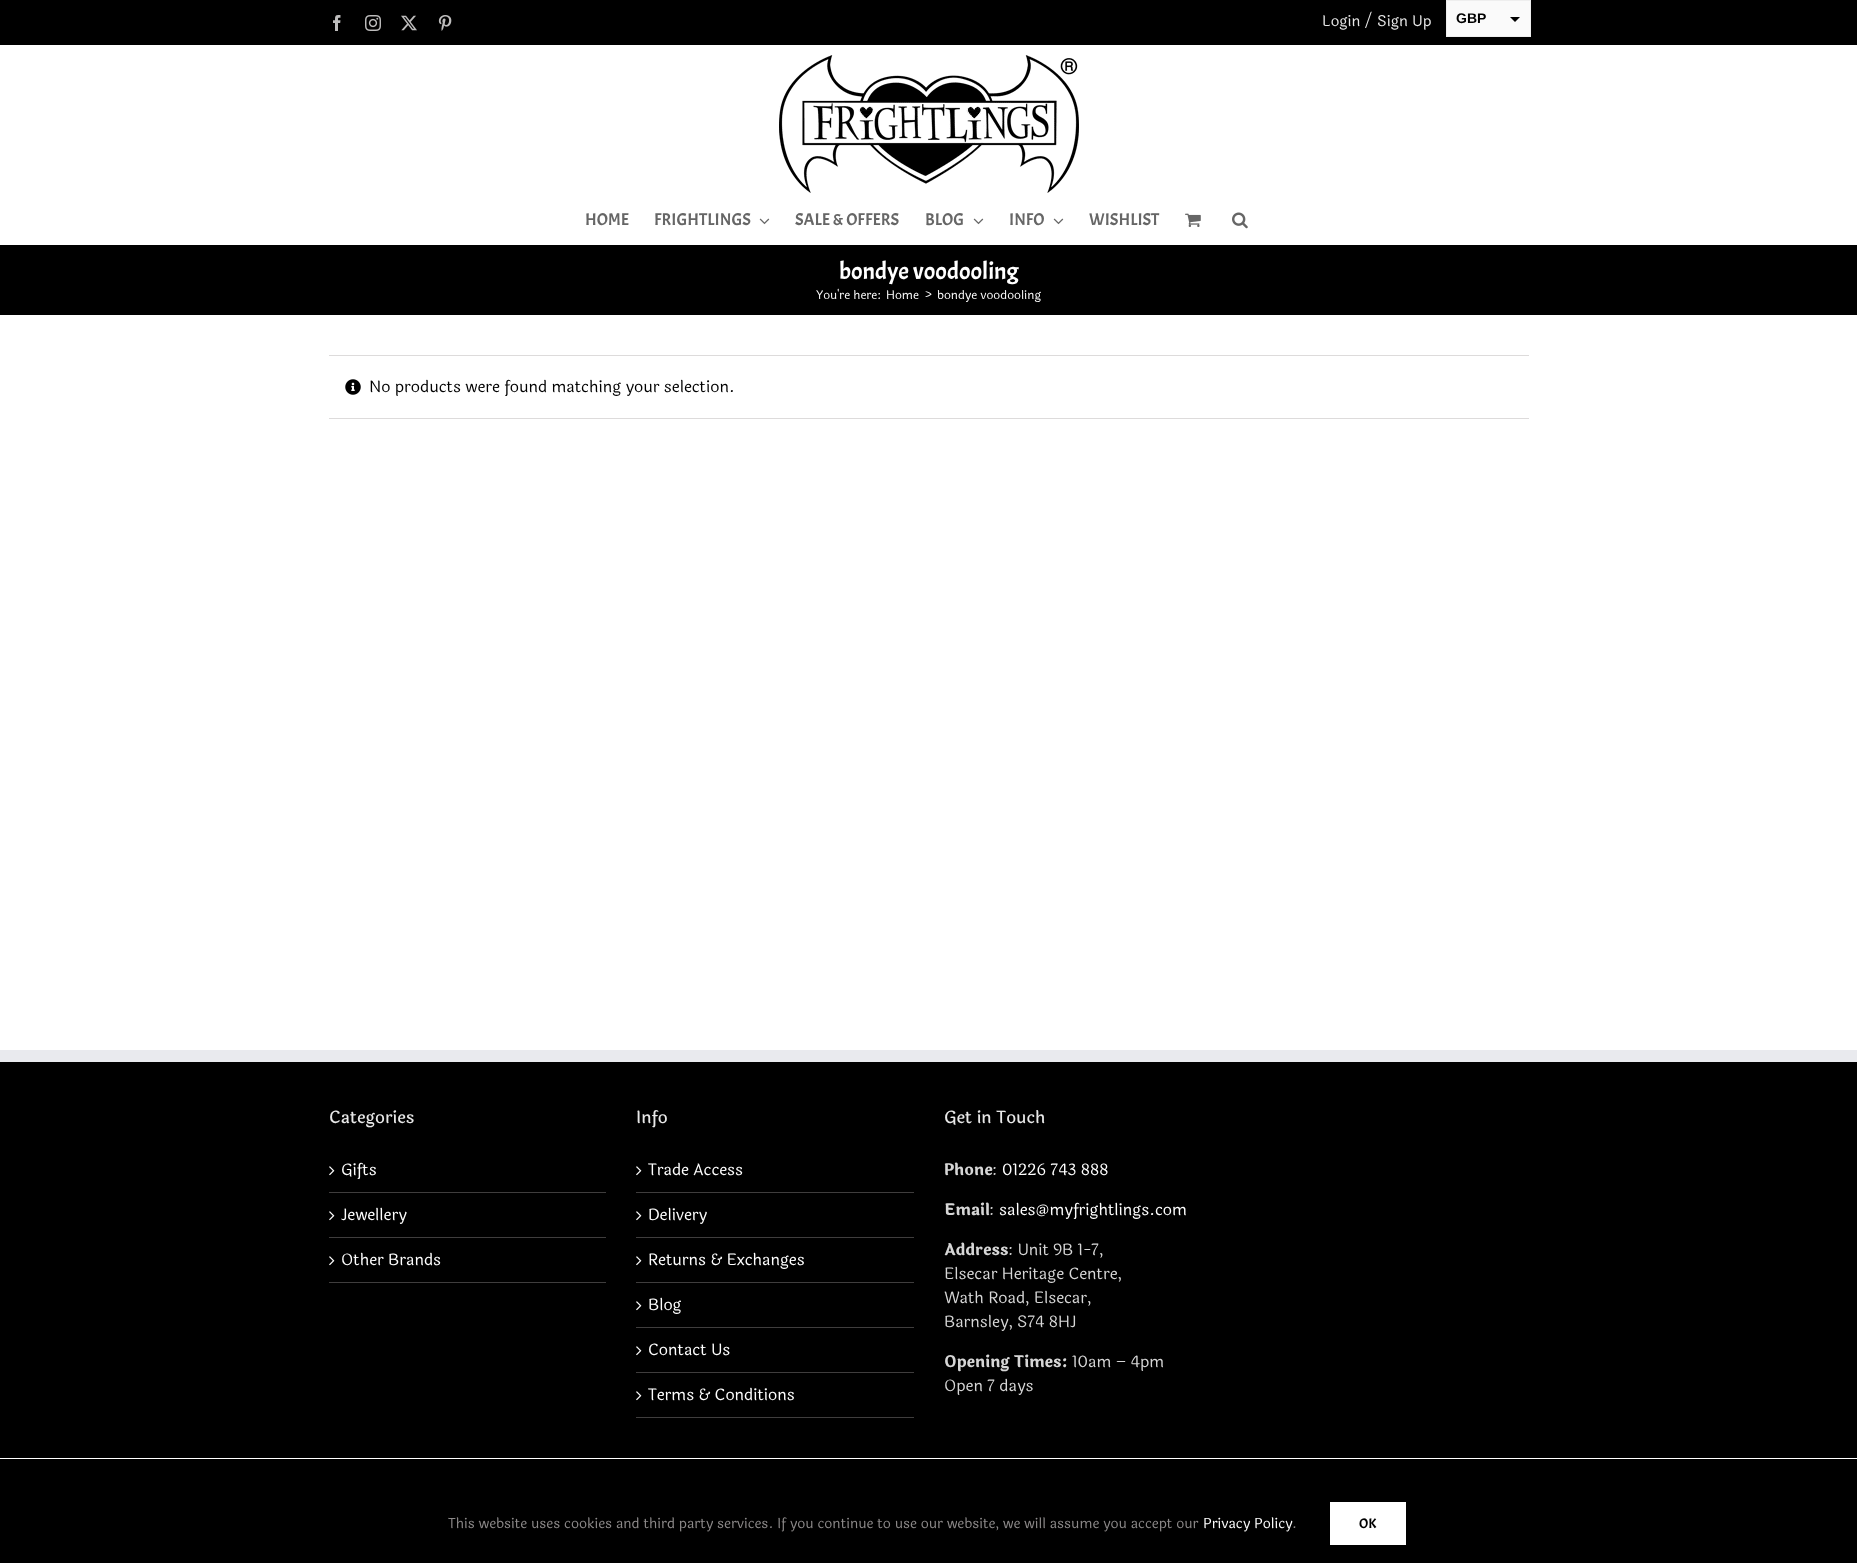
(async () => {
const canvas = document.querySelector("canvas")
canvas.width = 1857
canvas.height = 1563
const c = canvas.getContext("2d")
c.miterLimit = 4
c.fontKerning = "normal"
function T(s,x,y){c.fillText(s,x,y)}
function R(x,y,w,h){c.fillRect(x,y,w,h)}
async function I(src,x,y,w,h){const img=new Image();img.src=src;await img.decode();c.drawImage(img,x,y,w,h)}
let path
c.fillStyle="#fff"
R(0,0,1857,1563)
c.fillStyle="#000"
R(0,0,1857,45)
await I("1.png",333,15,8,16)
await I("2.png",365,15,16,16)
await I("3.png",401,15,16,16)
await I("4.png",438,15,14,16)
c.font="15px Laila"
c.fillStyle="#e8e8e8"
T("Login / Sign Up",1322,26)
c.fillStyle="#eee"
R(1446,0,85,37)
c.fillStyle="#fafafa"
R(1447,1,83,35)
c.font="bold 14px Liberation Sans"
c.fillStyle="#000"
T("GBP",1456,23)
path = new Path2D("M1510 17h10l-5 5z")
c.fill(path)
await I("5.png",779,55,300,138)
c.font="17px Acme"
c.fillStyle="#666"
T("HOME",585,225)
T("FRIGHTLINGS",654,225)
await I("6.png",759,218,11,7)
T("SALE & OFFERS",795,225)
T("BLOG",925,225)
await I("6.png",973,218,11,7)
T("INFO",1009,225)
await I("6.png",1053,218,11,7)
T("WISHLIST",1089,225)
await I("7.png",1185,213,16,14)
await I("8.png",1232,212,16,17)
c.fillStyle="#000"
R(0,245,1857,70)
c.font="24px Acme"
c.fillStyle="#fff"
T("bondye voodooling",839,279)
c.font="12px Laila"
T("You're here:",816,299)
T("Home",886,299)
T(">",924,299)
T("bondye voodooling",937,299)
c.fillStyle="#dddbdb"
R(329,355,1200,1)
R(329,418,1200,1)
await I("9.png",345,379,16,16)
c.font="16px Laila"
c.fillStyle="#000"
T("No products were found matching your selection.",369,392)
R(0,1062,1857,396)
c.fillStyle="#e9eaee"
R(0,1050,1857,12)
c.font="500 17px Laila"
c.fillStyle="#e8e8e8"
T("Categories",329,1123)
c.fillStyle="#3f3d3d"
R(329,1192,277,1)
await I("10.png",329,1166,6,10)
c.font="16px Laila"
c.fillStyle="#fff"
T("Gifts",341,1175)
c.fillStyle="#3f3d3d"
R(329,1237,277,1)
await I("10.png",329,1211,6,10)
c.fillStyle="#fff"
T("Jewellery",341,1220)
c.fillStyle="#3f3d3d"
R(329,1282,277,1)
await I("10.png",329,1256,6,10)
c.fillStyle="#fff"
T("Other Brands",341,1265)
c.font="500 17px Laila"
c.fillStyle="#e8e8e8"
T("Info",636,1123)
c.fillStyle="#3f3d3d"
R(636,1192,278,1)
await I("10.png",636,1166,6,10)
c.font="16px Laila"
c.fillStyle="#fff"
T("Trade Access",648,1175)
c.fillStyle="#3f3d3d"
R(636,1237,278,1)
await I("10.png",636,1211,6,10)
c.fillStyle="#fff"
T("Delivery",648,1220)
c.fillStyle="#3f3d3d"
R(636,1282,278,1)
await I("10.png",636,1256,6,10)
c.fillStyle="#fff"
T("Returns & Exchanges",648,1265)
c.fillStyle="#3f3d3d"
R(636,1327,278,1)
await I("10.png",636,1301,6,10)
c.fillStyle="#fff"
T("Blog",648,1310)
c.fillStyle="#3f3d3d"
R(636,1372,278,1)
await I("10.png",636,1346,6,10)
c.fillStyle="#fff"
T("Contact Us",648,1355)
c.fillStyle="#3f3d3d"
R(636,1417,278,1)
await I("10.png",636,1391,6,10)
c.fillStyle="#fff"
T("Terms & Conditions",648,1400)
c.font="500 17px Laila"
c.fillStyle="#e8e8e8"
T("Get in Touch",944,1123)
c.font="bold 16px Laila"
c.fillStyle="#d6d6d6"
T("Phone",944,1175)
c.font="16px Laila"
T(":",992,1175)
c.fillStyle="#fff"
T("01226 743 888",1002,1175)
c.font="bold 16px Laila"
c.fillStyle="#d6d6d6"
T("Email",944,1215)
c.font="16px Laila"
T(":",989,1215)
c.fillStyle="#fff"
T("sales@myfrightlings.com",999,1215)
c.font="bold 16px Laila"
c.fillStyle="#d6d6d6"
T("Address",944,1255)
c.font="16px Laila"
T(": Unit 9B 1-7,",1008,1255)
T("Elsecar Heritage Centre,",944,1279)
T("Wath Road, Elsecar,",944,1303)
T("Barnsley, S74 8HJ",944,1327)
c.font="bold 16px Laila"
T("Opening Times:",944,1367)
c.font="16px Laila"
T("10am – 4pm",1072,1367)
T("Open 7 days",944,1391)
c.fillStyle="#000"
R(0,1459,1857,104)
c.font="14px Laila"
c.fillStyle="#8c8989"
T("This website uses cookies and third party services. If you continue to use our website, we will assume you accept our",448,1528)
c.fillStyle="#fff"
T("Privacy Policy",1203,1528)
c.fillStyle="#8c8989"
T(".",1292,1528)
c.fillStyle="#fff"
R(1330,1502,76,43)
c.font="14px Acme"
c.fillStyle="#000"
T("OK",1359,1528)
})()
